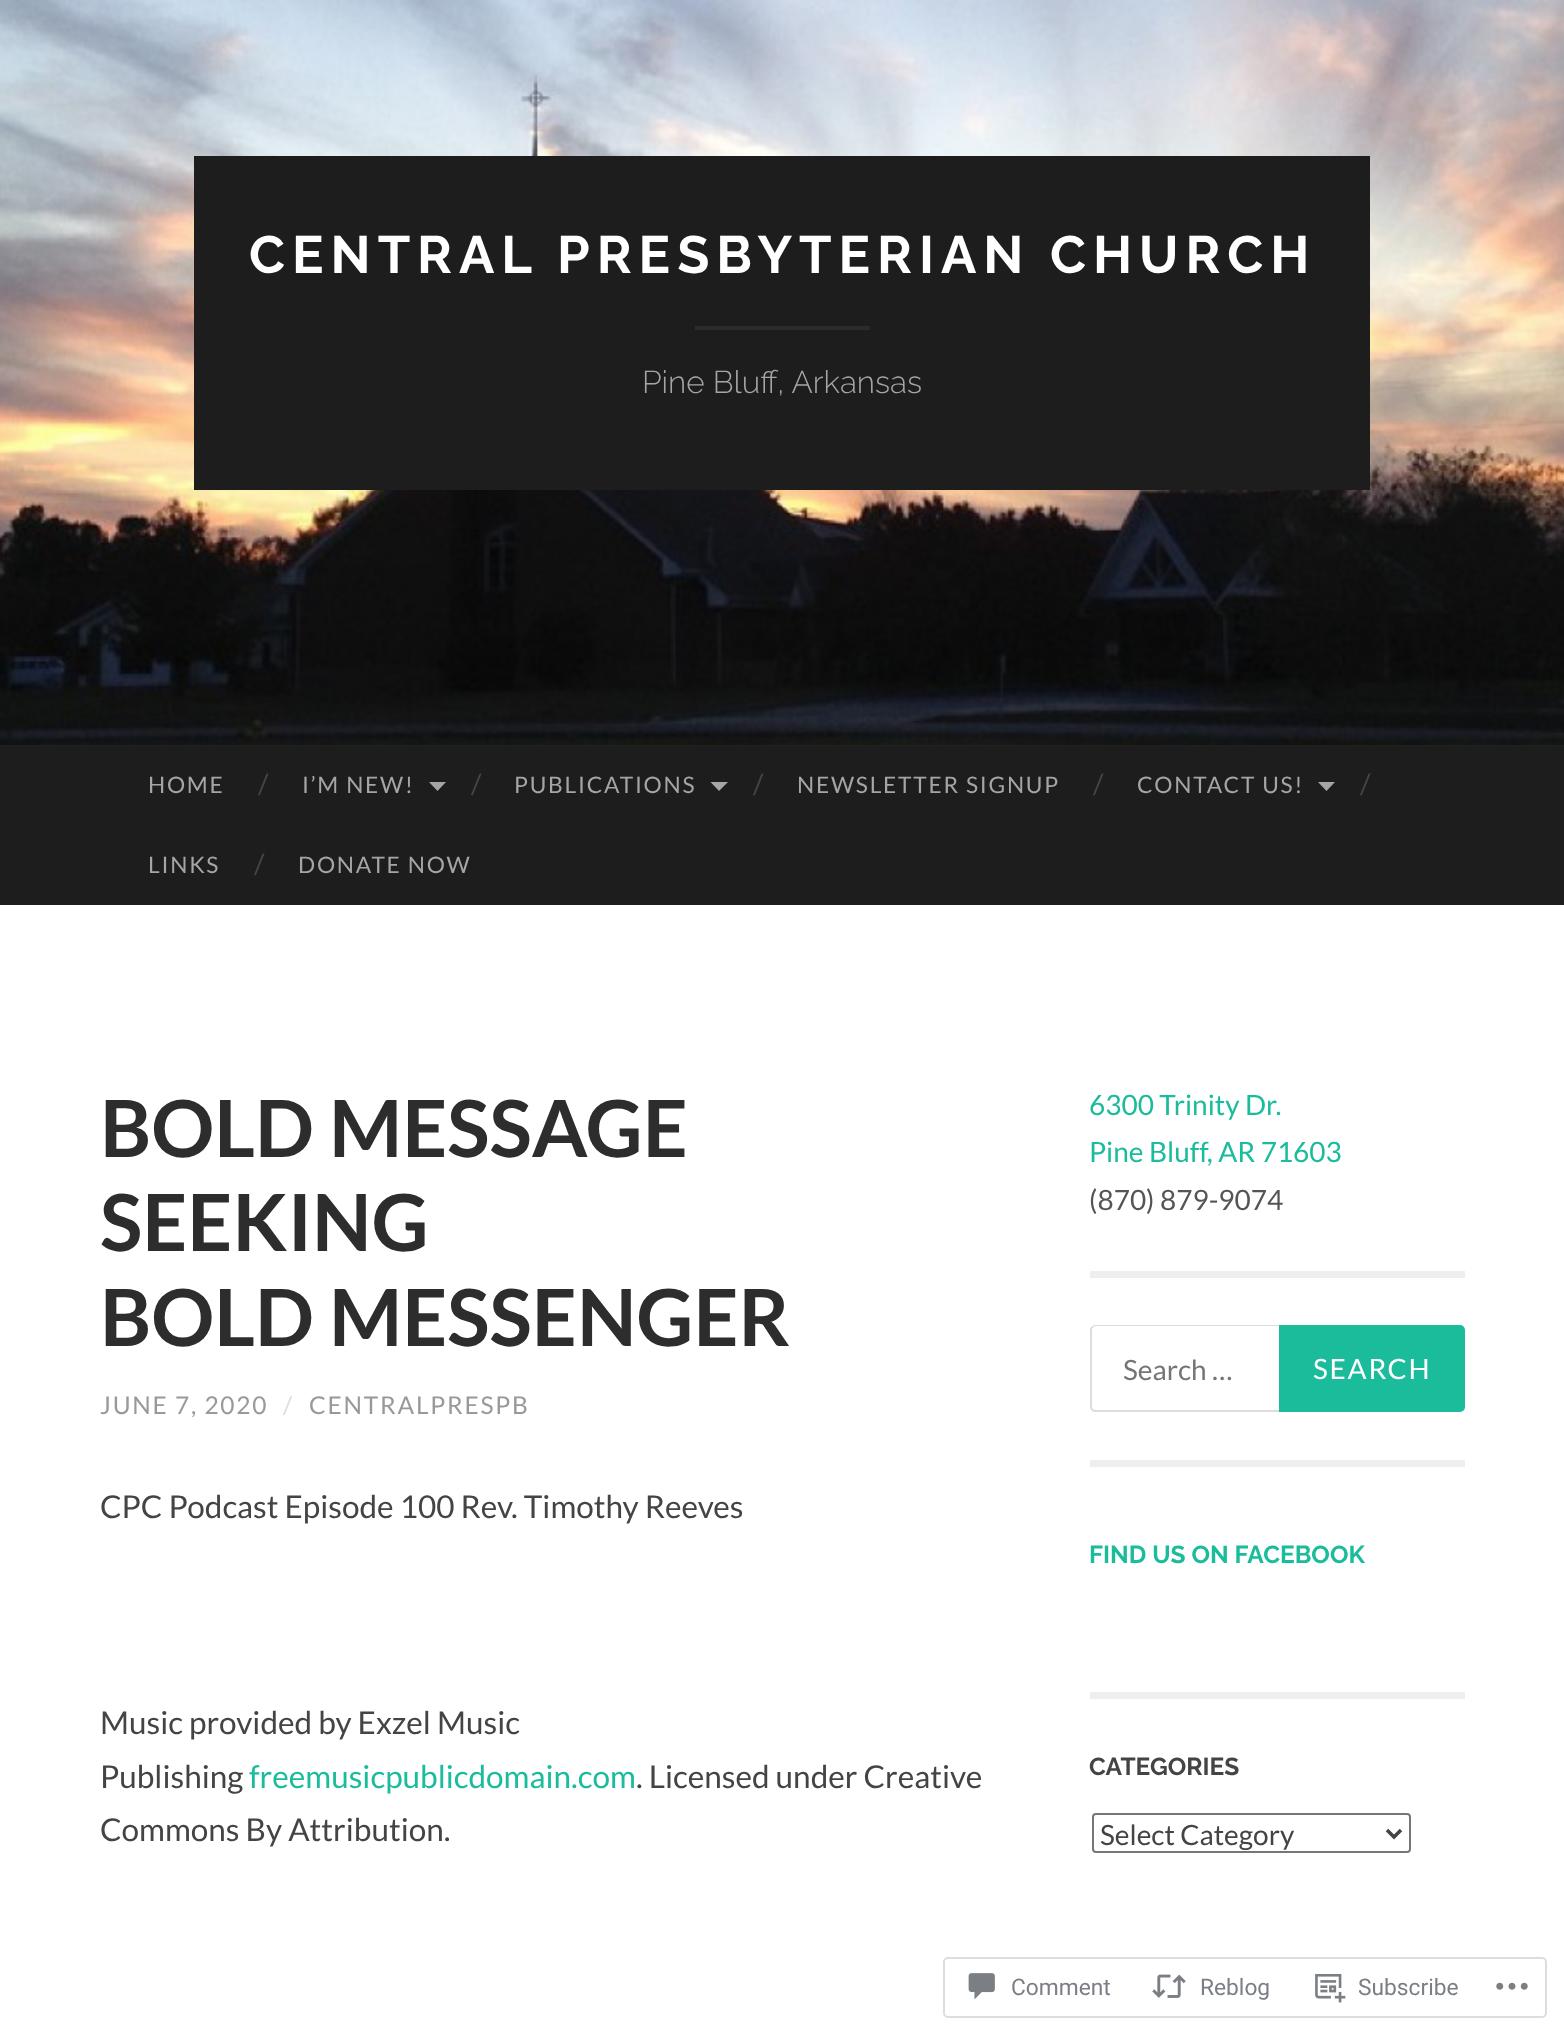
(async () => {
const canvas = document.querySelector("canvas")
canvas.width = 1564
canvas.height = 2034
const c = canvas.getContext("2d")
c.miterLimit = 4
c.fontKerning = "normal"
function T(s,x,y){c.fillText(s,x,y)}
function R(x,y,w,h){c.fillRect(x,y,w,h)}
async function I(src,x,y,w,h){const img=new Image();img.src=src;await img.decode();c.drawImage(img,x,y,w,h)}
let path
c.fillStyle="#fff"
R(0,0,1564,2034)
c.fillStyle="#262626"
R(0,745,1564,1)
await I("1.png",0,0,1564,746)
c.fillStyle="#1d1d1d"
R(194,156,1176,334)
c.letterSpacing="7px"
c.font="bold 52.5px Raleway"
c.fillStyle="#fff"
T("CENTRAL PRESBYTERIAN CHURCH",249,273)
c.fillStyle="#2b2b2b"
R(695,326,175,4)
c.letterSpacing="0px"
c.font="300 31.5px Raleway"
c.fillStyle="#a5a5a5"
T("Pine Bluff, Arkansas",642,393)
c.fillStyle="#1d1d1d"
R(0,746,1564,159)
c.letterSpacing="1.75px"
c.font="22.75px Lato"
c.fillStyle="#a5a5a5"
T("HOME",148,793)
c.letterSpacing="0px"
c.font="28px Lato"
c.fillStyle="#444"
T("/",258,794)
c.letterSpacing="1.75px"
c.font="22.75px Lato"
c.fillStyle="#a5a5a5"
T("I’M NEW!",302,793)
path = new Path2D("M429 782h17l-8.5 9z")
c.fill(path)
c.letterSpacing="0px"
c.font="28px Lato"
c.fillStyle="#444"
T("/",471,794)
c.letterSpacing="1.75px"
c.font="22.75px Lato"
c.fillStyle="#a5a5a5"
T("PUBLICATIONS",514,793)
path = new Path2D("M710.5 782h17.5l-9 9z")
c.fill(path)
c.letterSpacing="0px"
c.font="28px Lato"
c.fillStyle="#444"
T("/",753,794)
c.letterSpacing="1.75px"
c.font="22.75px Lato"
c.fillStyle="#a5a5a5"
T("NEWSLETTER SIGNUP",797,793)
c.letterSpacing="0px"
c.font="28px Lato"
c.fillStyle="#444"
T("/",1093,794)
c.letterSpacing="1.75px"
c.font="22.75px Lato"
c.fillStyle="#a5a5a5"
T("CONTACT US!",1137,793)
path = new Path2D("M1318 782h17l-8.5 9z")
c.fill(path)
c.letterSpacing="0px"
c.font="28px Lato"
c.fillStyle="#444"
T("/",1360,794)
c.letterSpacing="1.75px"
c.font="22.75px Lato"
c.fillStyle="#a5a5a5"
T("LINKS",148,873)
c.letterSpacing="0px"
c.font="28px Lato"
c.fillStyle="#444"
T("/",254,874)
c.letterSpacing="1.75px"
c.font="22.75px Lato"
c.fillStyle="#a5a5a5"
T("DONATE NOW",298,873)
c.letterSpacing="0px"
c.font="bold 78.75px Lato"
c.fillStyle="#2d2d2d"
T("BOLD MESSAGE",100,1157)
T("SEEKING",100,1251)
T("BOLD MESSENGER",100,1346)
c.letterSpacing="1.75px"
c.font="24.5px Lato"
c.fillStyle="#999"
T("JUNE 7, 2020",100,1414)
c.fillStyle="#ddd"
T("/",283,1414)
c.fillStyle="#999"
T("CENTRALPRESPB",309,1414)
c.letterSpacing="0px"
c.font="31.5px Lato"
c.fillStyle="#444"
T("CPC Podcast Episode 100 Rev. Timothy Reeves",100,1518)
T("Music provided by Exzel Music",100,1734)
T("Publishing",100,1788)
c.fillStyle="#1abc9c"
T("freemusicpublicdomain.com",249,1788)
c.fillStyle="#444"
T(". Licensed under Creative",636,1788)
T("Commons By Attribution.",100,1841)
c.fillStyle="#eee"
R(1090,1271,375,7)
c.font="28px Lato"
c.fillStyle="#1abc9c"
T("6300 Trinity Dr.",1089,1115)
T("Pine Bluff, AR 71603",1089,1162)
c.fillStyle="#555"
T("(870) 879-9074",1089,1210)
c.fillStyle="#eee"
R(1090,1460,375,7)
c.fillStyle="#ddd"
path = new Path2D("M1096 1325h365v87h-365c-3 0-6-2-6-5v-77c0-3 3-5 6-5zm0 1h365v84h-365c-2 0-4-1-4-3v-77c0-2 2-4 4-4z")
c.fill(path,"evenodd")
c.fillStyle="#757575"
T("Search …",1123,1380)
c.fillStyle="#1abc9c"
c.beginPath()
c.roundRect(1280,1326,184,85,[0,4,4,0])
c.fill()
c.strokeStyle="#1abc9c"
c.lineWidth=2
c.stroke()
c.letterSpacing="1.75px"
c.fillStyle="#fff"
T("SEARCH",1313,1379)
c.fillStyle="#eee"
R(1090,1692,375,7)
c.letterSpacing="0px"
c.font="bold 24.5px Raleway"
c.fillStyle="#1abc9c"
T("FIND US ON FACEBOOK",1089,1563)
c.fillStyle="#444"
T("CATEGORIES",1089,1775)
c.beginPath()
c.roundRect(1093,1814,317,38,3)
c.strokeStyle="#767676"
c.stroke()
path = new Path2D("M1387 1830l7 7l7-7")
c.strokeStyle="#444"
c.lineWidth=3.5
c.stroke(path)
c.font="28px Lato"
T("Select Category",1100,1845)
c.beginPath()
c.roundRect(944,1958,602,59,4)
c.strokeStyle="#dddddf"
c.lineWidth=2
c.stroke()
await I("2.png",968,1973,27,27)
c.font="22.75px Roboto"
c.fillStyle="#7b7f85"
T("Comment",1011,1995)
await I("3.png",1152,1974,34,24)
T("Reblog",1200,1995)
await I("4.png",1315,1974,31,29)
T("Subscribe",1358,1995)
await I("5.png",1496,1982,32,8)
})()
